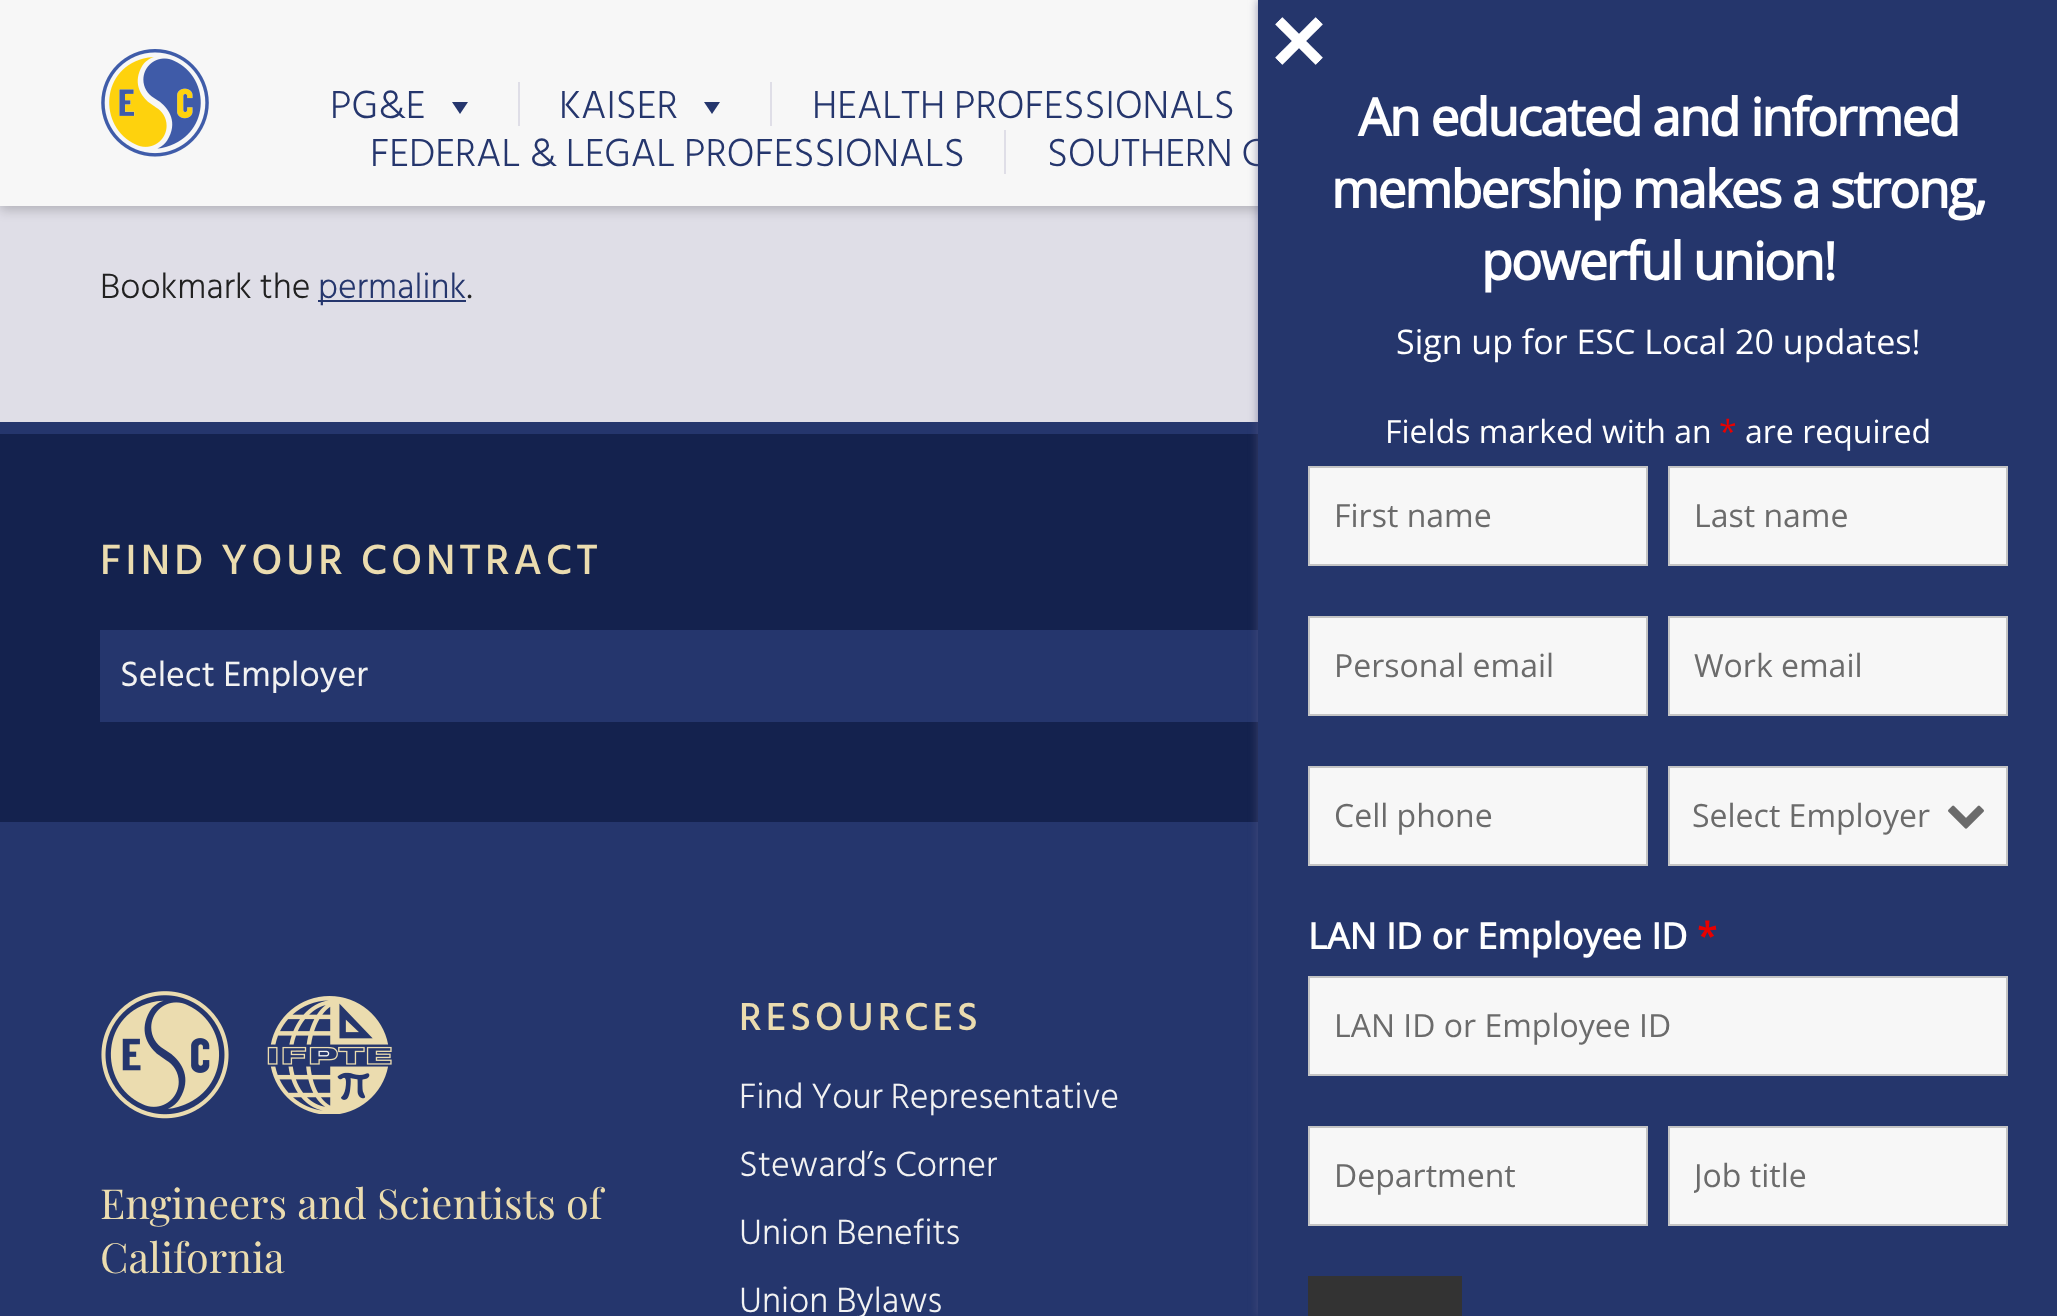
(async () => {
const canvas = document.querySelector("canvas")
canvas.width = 2057
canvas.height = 1316
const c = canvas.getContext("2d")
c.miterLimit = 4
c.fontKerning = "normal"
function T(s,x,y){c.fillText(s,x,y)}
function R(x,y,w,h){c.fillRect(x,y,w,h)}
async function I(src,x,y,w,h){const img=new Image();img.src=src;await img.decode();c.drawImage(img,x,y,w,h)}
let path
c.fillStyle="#dfdee7"
R(0,0,2057,1316)
c.font="300 36px Hind Siliguri"
c.fillStyle="#212121"
T("Bookmark the",100,298)
c.fillStyle="#25366d"
R(318,300,148,2)
T("permalink",318,298)
c.fillStyle="#212121"
T(".",467,298)
c.fillStyle="#00000033"
c.filter="blur(6px)"
c.beginPath()
c.rect(0,4,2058,206)
c.fill()
c.filter="none"
c.fillStyle="#f7f7f7"
R(0,0,1258,206)
await I("1.png",101,49,108,108)
c.fillStyle="#dfdee7"
R(518,82,2,44)
c.font="300 40px Hind Siliguri"
c.fillStyle="#25366d"
T("PG&E",330,118)
path = new Path2D("M468 102l-8 12l-8-12z")
c.fill(path)
c.fillStyle="#dfdee7"
R(770,82,2,44)
c.fillStyle="#25366d"
T("KAISER",559,118)
path = new Path2D("M720 102l-8 12l-8-12z")
c.fill(path)
T("HEALTH PROFESSIONALS",812,118)
c.fillStyle="#dfdee7"
R(1004,130,2,44)
c.fillStyle="#25366d"
T("FEDERAL & LEGAL PROFESSIONALS",370,166)
T("SOUTHERN C",1047,166)
c.fillStyle="#14224e"
R(0,434,1258,388)
c.fillStyle="#25366d"
R(0,422,1258,12)
R(100,630,1158,92)
R(0,822,1258,494)
c.fillStyle="#56568399"
c.filter="blur(5px)"
c.beginPath()
c.rect(1258,0,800,1316)
c.fill()
c.filter="none"
c.fillStyle="#25366c"
R(1258,0,799,1316)
await I("2.png",1275,17,48,48)
c.letterSpacing="-2px"
c.font="bold 52px Open Sans"
c.fillStyle="#fff"
T("An educated and informed",1358,136)
T("membership makes a strong,",1331,208)
T("powerful union!",1481,280)
c.letterSpacing="0px"
c.font="34px Open Sans"
T("Sign up for ESC Local 20 updates!",1396,354)
c.font="32px Open Sans"
T("Fields marked with an",1385,443)
c.fillStyle="#e80000"
T("*",1719,443)
c.fillStyle="#fff"
T("are required",1745,443)
c.fillStyle="#f7f7f7"
c.beginPath()
c.rect(1309,467,338,98)
c.fill()
c.strokeStyle="#c4c4c4"
c.lineWidth=2
c.stroke()
c.fillStyle="#6b6b6b"
T("First name",1334,527)
c.fillStyle="#f7f7f7"
c.beginPath()
c.rect(1669,467,338,98)
c.fill()
c.stroke()
c.fillStyle="#6b6b6b"
T("Last name",1694,527)
c.fillStyle="#f7f7f7"
c.beginPath()
c.rect(1309,617,338,98)
c.fill()
c.stroke()
c.fillStyle="#6b6b6b"
T("Personal email",1334,677)
c.fillStyle="#f7f7f7"
c.beginPath()
c.rect(1669,617,338,98)
c.fill()
c.stroke()
c.fillStyle="#6b6b6b"
T("Work email",1694,677)
c.fillStyle="#f7f7f7"
c.beginPath()
c.rect(1309,767,338,98)
c.fill()
c.stroke()
c.fillStyle="#6b6b6b"
T("Cell phone",1334,827)
c.fillStyle="#f7f7f7"
c.beginPath()
c.rect(1669,767,338,98)
c.fill()
c.stroke()
await I("3.png",1948,805,36,24)
c.fillStyle="#6b6b6b"
T("Select Employer",1692,827)
c.font="bold 36px Open Sans"
c.fillStyle="#fff"
T("LAN ID or Employee ID",1308,949)
c.fillStyle="#e80000"
T("*",1697,949)
c.fillStyle="#f7f7f7"
c.beginPath()
c.rect(1309,977,698,98)
c.fill()
c.stroke()
c.font="32px Open Sans"
c.fillStyle="#6b6b6b"
T("LAN ID or Employee ID",1334,1037)
c.fillStyle="#f7f7f7"
c.beginPath()
c.rect(1309,1127,338,98)
c.fill()
c.stroke()
c.fillStyle="#6b6b6b"
T("Department",1334,1187)
c.fillStyle="#f7f7f7"
c.beginPath()
c.rect(1669,1127,338,98)
c.fill()
c.stroke()
c.save()
c.beginPath()
c.rect(1694,1154,288,44)
c.clip()
c.fillStyle="#6b6b6b"
T("Job title",1694,1187)
c.restore()
c.fillStyle="#333"
R(1308,1276,154,40)
c.letterSpacing="4px"
c.font="500 43.25px Hind Siliguri"
c.fillStyle="#ebdcaf"
T("FIND YOUR CONTRACT",100,574)
c.letterSpacing="0px"
c.font="36px Hind Siliguri"
c.fillStyle="#f2f2f2"
T("Select Employer",120,686)
await I("4.png",101,991,128,128)
await I("5.png",267,996,125,118)
c.font="41.4px Playfair Display"
c.fillStyle="#ebdcaf"
T("Engineers and Scientists of",100,1219)
T("California",100,1273)
c.letterSpacing="4px"
c.font="500 40px Hind Siliguri"
T("RESOURCES",739,1030)
c.letterSpacing="0px"
c.font="300 36px Hind Siliguri"
c.fillStyle="#f2f2f2"
T("Find Your Representative",739,1108)
T("Steward’s Corner",739,1176)
T("Union Benefits",739,1244)
T("Union Bylaws",739,1312)
})()
